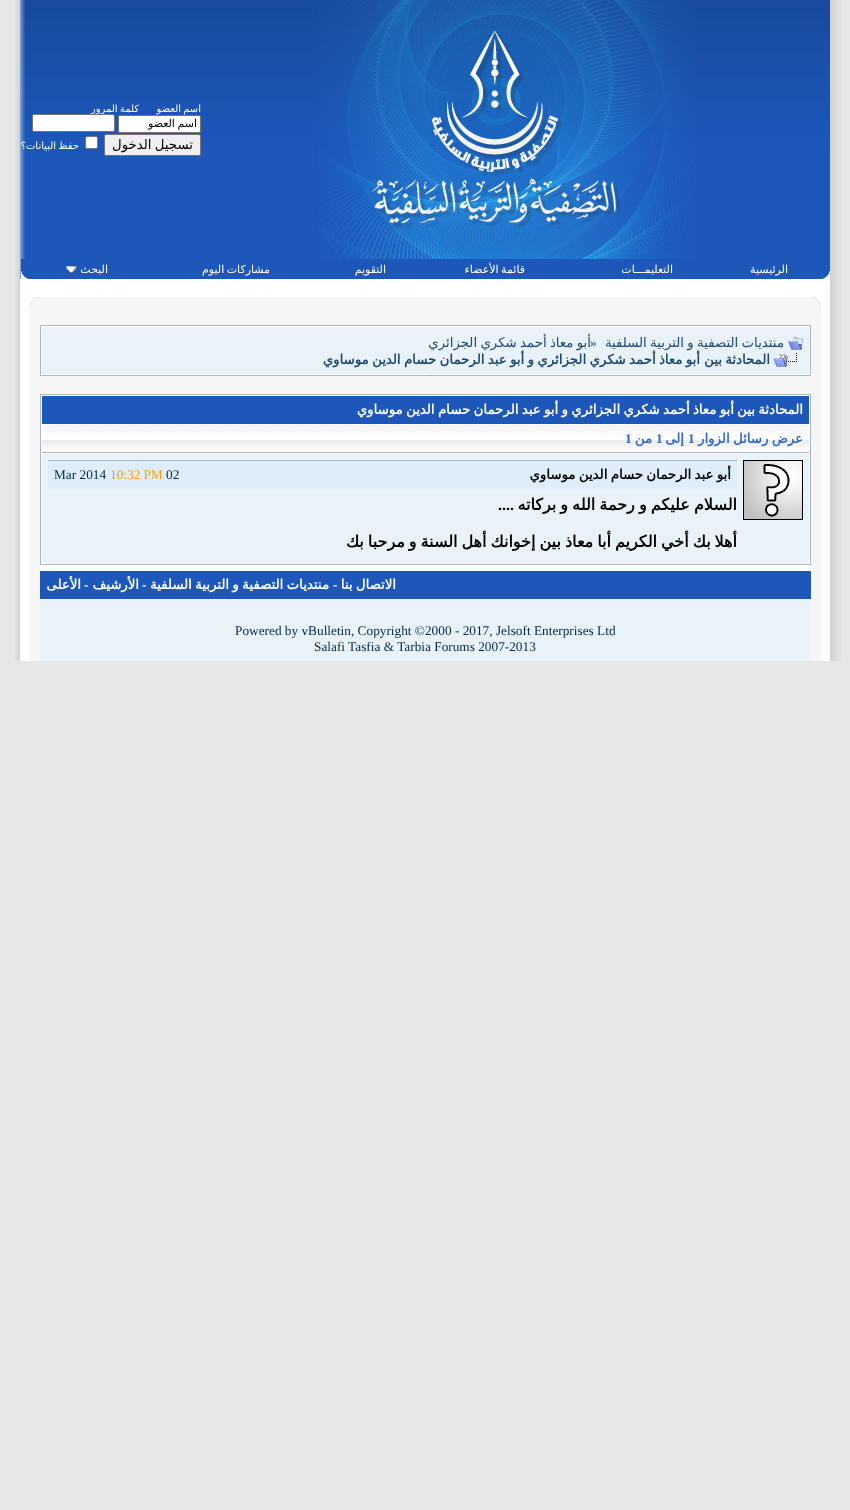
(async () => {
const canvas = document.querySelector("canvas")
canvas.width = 850
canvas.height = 1510
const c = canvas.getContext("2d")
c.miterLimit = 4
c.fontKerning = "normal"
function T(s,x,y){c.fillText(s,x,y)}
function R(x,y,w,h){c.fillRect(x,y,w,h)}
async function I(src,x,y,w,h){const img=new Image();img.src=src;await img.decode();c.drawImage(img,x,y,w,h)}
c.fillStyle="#e7e7e7"
R(0,0,850,1510)
await I("1.png",830,0,11,661)
c.fillStyle="#fff"
R(20,0,810,661)
await I("2.png",20,0,810,279)
await I("3.png",318,0,378,259)
c.wordSpacing="-1px"
c.direction="rtl"
c.font="10px DejaVu Sans"
T("اسم العضو",201,112)
T("كلمة المرور",139,112)
c.beginPath()
c.roundRect(118.5,115.5,82,17,1.5)
c.fill()
c.strokeStyle="#767676"
c.stroke()
c.font="11px DejaVu Sans"
c.fillStyle="#000"
T("اسم العضو",197,127)
c.fillStyle="#fff"
c.beginPath()
c.roundRect(32.5,114.5,82,17,1.5)
c.fill()
c.stroke()
c.fillStyle="#efefef"
c.beginPath()
c.roundRect(104.5,134.5,96,21,1.5)
c.fill()
c.stroke()
c.wordSpacing="-0.9px"
c.font="13.3px DejaVu Sans"
c.fillStyle="#000"
T("تسجيل الدخول",193,149)
c.fillStyle="#fff"
c.beginPath()
c.roundRect(85.5,136.5,12,12,1.5)
c.fill()
c.stroke()
c.wordSpacing="-1px"
c.font="10px DejaVu Sans"
T("حفظ البيانات؟",79,149)
await I("4.png",820,259,10,20)
c.fillStyle="#1c57b9"
R(31,259,789,20)
c.wordSpacing="0px"
c.font="11px DejaVu Sans"
c.fillStyle="#fff"
T("الرئيسية",788,273)
T("التعليمـــات",673,273)
c.wordSpacing="-1px"
T("قائمة الأعضاء",525,273)
c.wordSpacing="0px"
T("التقويم",386,273)
c.wordSpacing="-1px"
T("مشاركات اليوم",270,273)
c.wordSpacing="0px"
T("البحث",108,273)
await I("5.png",66,266,11,7)
await I("6.png",21,259,10,20)
await I("7.png",811,297,10,10)
c.fillStyle="#f6f6f6"
R(40,297,771,97)
await I("8.png",29,297,11,10)
R(811,307,11,354)
c.fillStyle="#fff"
c.beginPath()
c.rect(40.5,325.5,770,50)
c.fill()
c.strokeStyle="#a9b8c2"
c.stroke()
c.fillStyle="#eaf2f9"
R(42,327,767,47)
await I("9.png",788,337,15,13)
c.wordSpacing="-0.9px"
c.font="13.3px DejaVu Sans"
c.fillStyle="#1c4874"
T("منتديات التصفية و التربية السلفية",784,347)
c.wordSpacing="0px"
c.direction="ltr"
c.font="13.3px Liberation Serif"
T("»",590,347)
c.wordSpacing="-0.9px"
c.direction="rtl"
c.font="13.3px DejaVu Sans"
T("أبو معاذ أحمد شكري الجزائري",591,347)
await I("10.png",773,353,24,14)
c.font="bold 13.3px DejaVu Sans"
T("المحادثة بين",770,364)
T("أبو معاذ أحمد شكري الجزائري و أبو عبد الرحمان حسام الدين موساوي",700,364)
c.strokeRect(40.5,394.5,770,170)
c.fillStyle="#1c57b9"
R(42,396,767,28)
c.fillStyle="#fff"
T("المحادثة بين",803,414)
T("أبو معاذ أحمد شكري الجزائري و أبو عبد الرحمان حسام الدين موساوي",734,414)
await I("11.png",42,425,767,28)
c.fillStyle="#36c"
T("عرض رسائل الزوار",803,443)
c.wordSpacing="0px"
c.direction="ltr"
c.font="bold 13.3px Liberation Serif"
T("1",688,443)
c.direction="rtl"
c.font="bold 13.3px DejaVu Sans"
T("إلى",684,443)
c.direction="ltr"
c.font="bold 13.3px Liberation Serif"
T("1",656,443)
c.direction="rtl"
c.font="bold 13.3px DejaVu Sans"
T("من",652,443)
c.direction="ltr"
c.font="bold 13.3px Liberation Serif"
T("1",625,443)
c.fillStyle="#eaf2f9"
R(42,454,767,109)
await I("12.png",743,460,60,60)
c.fillStyle="#a9b8c2"
R(48,460,689,1)
c.fillStyle="#dfedfa"
R(48,461,689,28)
c.wordSpacing="-0.9px"
c.direction="rtl"
c.font="bold 13.3px DejaVu Sans"
c.fillStyle="#000"
T("أبو عبد الرحمان حسام الدين موساوي",731,479)
c.wordSpacing="0px"
c.direction="ltr"
c.font="13.3px Liberation Serif"
c.fillStyle="#002a46"
T("02",166,479)
c.fillStyle="#f99f03"
T("10:32 PM",110,479)
c.fillStyle="#002a46"
T("Mar 2014",54,479)
c.save()
c.beginPath()
c.rect(48,495,689,56)
c.clip()
c.wordSpacing="-1px"
c.direction="rtl"
c.font="bold 16px DejaVu Sans"
c.fillStyle="#000"
T("السلام عليكم و رحمة الله و بركاته",737,510)
c.restore()
c.direction="rtl"
c.font="bold 16px Liberation Serif"
c.fillStyle="#000"
T("....",514,510)
c.save()
c.beginPath()
c.rect(48,495,689,56)
c.clip()
c.wordSpacing="-1.1px"
c.font="bold 16px DejaVu Sans"
T("أهلا بك أخي الكريم أبا معاذ بين إخوانك أهل السنة و مرحبا بك",737,547)
c.restore()
c.fillStyle="#1c57b9"
R(40,571,771,28)
c.wordSpacing="-0.9px"
c.font="bold 13.3px DejaVu Sans"
c.fillStyle="#fff"
T("الاتصال بنا",396,589)
c.wordSpacing="0px"
c.direction="ltr"
c.font="bold 13.3px Liberation Serif"
T("-",333,589)
c.wordSpacing="-0.9px"
c.direction="rtl"
c.font="bold 13.3px DejaVu Sans"
T("منتديات التصفية و التربية السلفية",329,589)
c.wordSpacing="0px"
c.direction="ltr"
c.font="bold 13.3px Liberation Serif"
T("-",142,589)
c.direction="rtl"
c.font="bold 13.3px DejaVu Sans"
T("الأرشيف",139,589)
c.direction="ltr"
c.font="bold 13.3px Liberation Serif"
T("-",84,589)
c.direction="rtl"
c.font="bold 13.3px DejaVu Sans"
T("الأعلى",81,589)
c.fillStyle="#eaf2f9"
R(40,599,771,62)
c.direction="ltr"
c.font="13.3px Liberation Serif"
c.fillStyle="#002a46"
T("Powered by vBulletin, Copyright ©2000 - 2017, Jelsoft Enterprises Ltd",235,635)
T("Salafi Tasfia & Tarbia Forums 2007-2013",314,651)
c.fillStyle="#f6f6f6"
R(30,307,10,354)
await I("13.png",15,0,5,661)
})()
